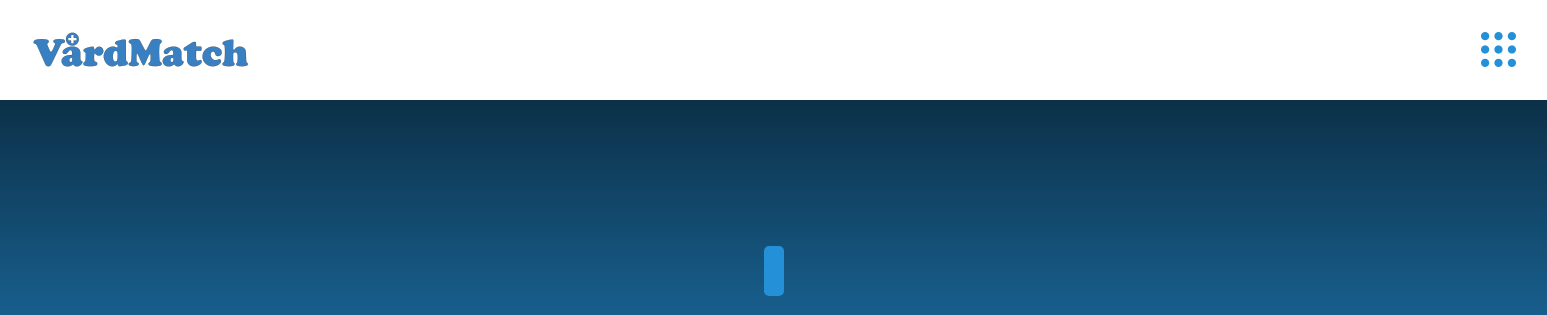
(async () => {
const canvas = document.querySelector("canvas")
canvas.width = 1547
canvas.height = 315
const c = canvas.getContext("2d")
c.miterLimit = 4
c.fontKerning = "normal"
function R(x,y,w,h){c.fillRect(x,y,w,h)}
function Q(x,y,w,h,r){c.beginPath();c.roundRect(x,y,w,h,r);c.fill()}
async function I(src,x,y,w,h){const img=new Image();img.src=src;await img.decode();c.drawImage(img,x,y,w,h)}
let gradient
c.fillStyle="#fff"
R(0,0,1547,315)
await I("1.png",33,32,215,35)
await I("2.png",1481,32,35,35)
gradient = c.createLinearGradient(774,100,774,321)
gradient.addColorStop(0,"#0c3048")
gradient.addColorStop(1,"#18608f")
c.fillStyle = gradient
R(0,100,1547,215)
c.fillStyle="#2490d7"
Q(764,246,20,50,5)
})()
